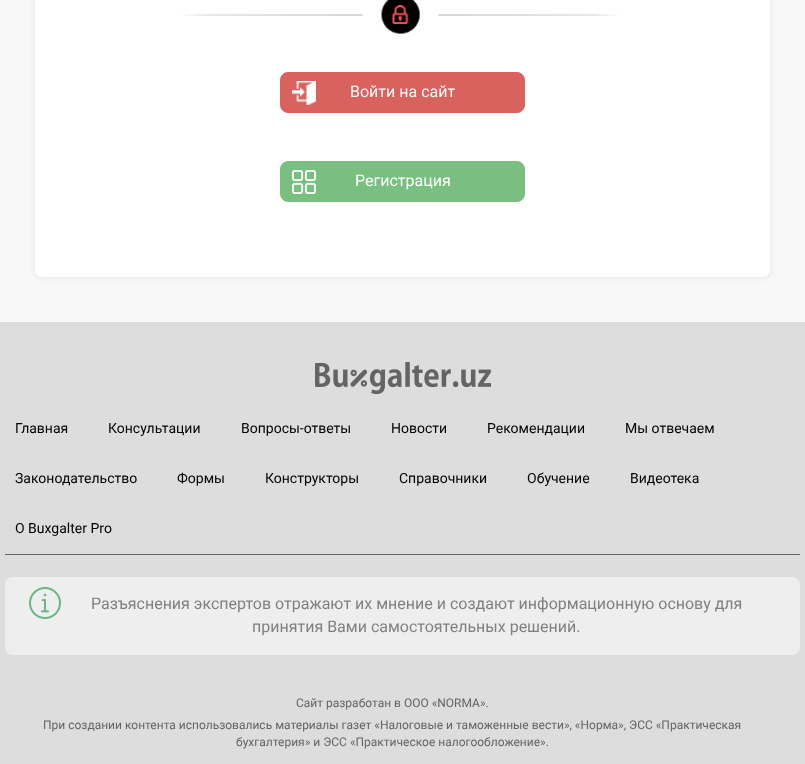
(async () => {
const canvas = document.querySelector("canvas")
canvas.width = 805
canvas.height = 764
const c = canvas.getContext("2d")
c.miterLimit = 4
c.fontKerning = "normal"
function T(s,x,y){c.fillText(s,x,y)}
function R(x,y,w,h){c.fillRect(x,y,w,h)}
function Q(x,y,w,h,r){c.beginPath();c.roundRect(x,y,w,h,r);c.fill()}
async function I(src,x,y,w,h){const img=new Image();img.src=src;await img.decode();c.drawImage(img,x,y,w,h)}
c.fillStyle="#f8f8f8"
R(0,0,805,764)
c.fillStyle="#e5e5e5"
c.filter="blur(2.5px)"
c.beginPath()
c.roundRect(34,-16,737,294,8)
c.fill()
c.filter="none"
c.fillStyle="#fff"
Q(35,-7,735,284,7)
await I("1.png",182,0,435,34)
c.fillStyle="#d9625e"
c.beginPath()
c.roundRect(280.5,72.5,244,40,7.5)
c.fill()
c.strokeStyle="#d9625e"
c.stroke()
await I("2.png",292,81,24,24)
c.font="16px Roboto"
c.fillStyle="#fff"
T("Войти на сайт",350,97)
c.fillStyle="#79bf80"
c.beginPath()
c.roundRect(280.5,161.5,244,40,7.5)
c.fill()
c.strokeStyle="#79bf80"
c.stroke()
await I("3.png",292,170,24,24)
c.fillStyle="#fff"
T("Регистрация",355,186)
c.fillStyle="#ddd"
R(0,322,805,442)
await I("4.png",315,362,176,32)
c.fillStyle="#646464"
R(5,554,795,1)
c.font="14px Roboto"
c.fillStyle="#000"
T("Главная",15,433)
T("Консультации",108,433)
T("Вопросы-ответы",241,433)
T("Новости",391,433)
T("Рекомендации",487,433)
T("Мы отвечаем",625,433)
T("Законодательство",15,483)
T("Формы",177,483)
T("Конструкторы",265,483)
T("Справочники",399,483)
T("Обучение",527,483)
T("Видеотека",630,483)
T("О Buxgalter Pro",15,533)
c.fillStyle="#eee"
Q(5,577,795,78,8)
await I("5.png",29,587,32,32)
c.font="16px Roboto"
c.fillStyle="#808080"
T("Разъяснения экспертов отражают их мнение и создают информационную основу для",91,609)
T("принятия Вами самостоятельных решений.",252,632)
c.font="12px Roboto"
c.fillStyle="#646464"
T("Сайт разработан в ООО «NORMA».",296,707)
T("При создании контента использовались материалы газет «Налоговые и таможенные вести», «Норма», ЭСС «Практическая",43,729)
T("бухгалтерия» и ЭСС «Практическое налогообложение».",236,746)
})()
